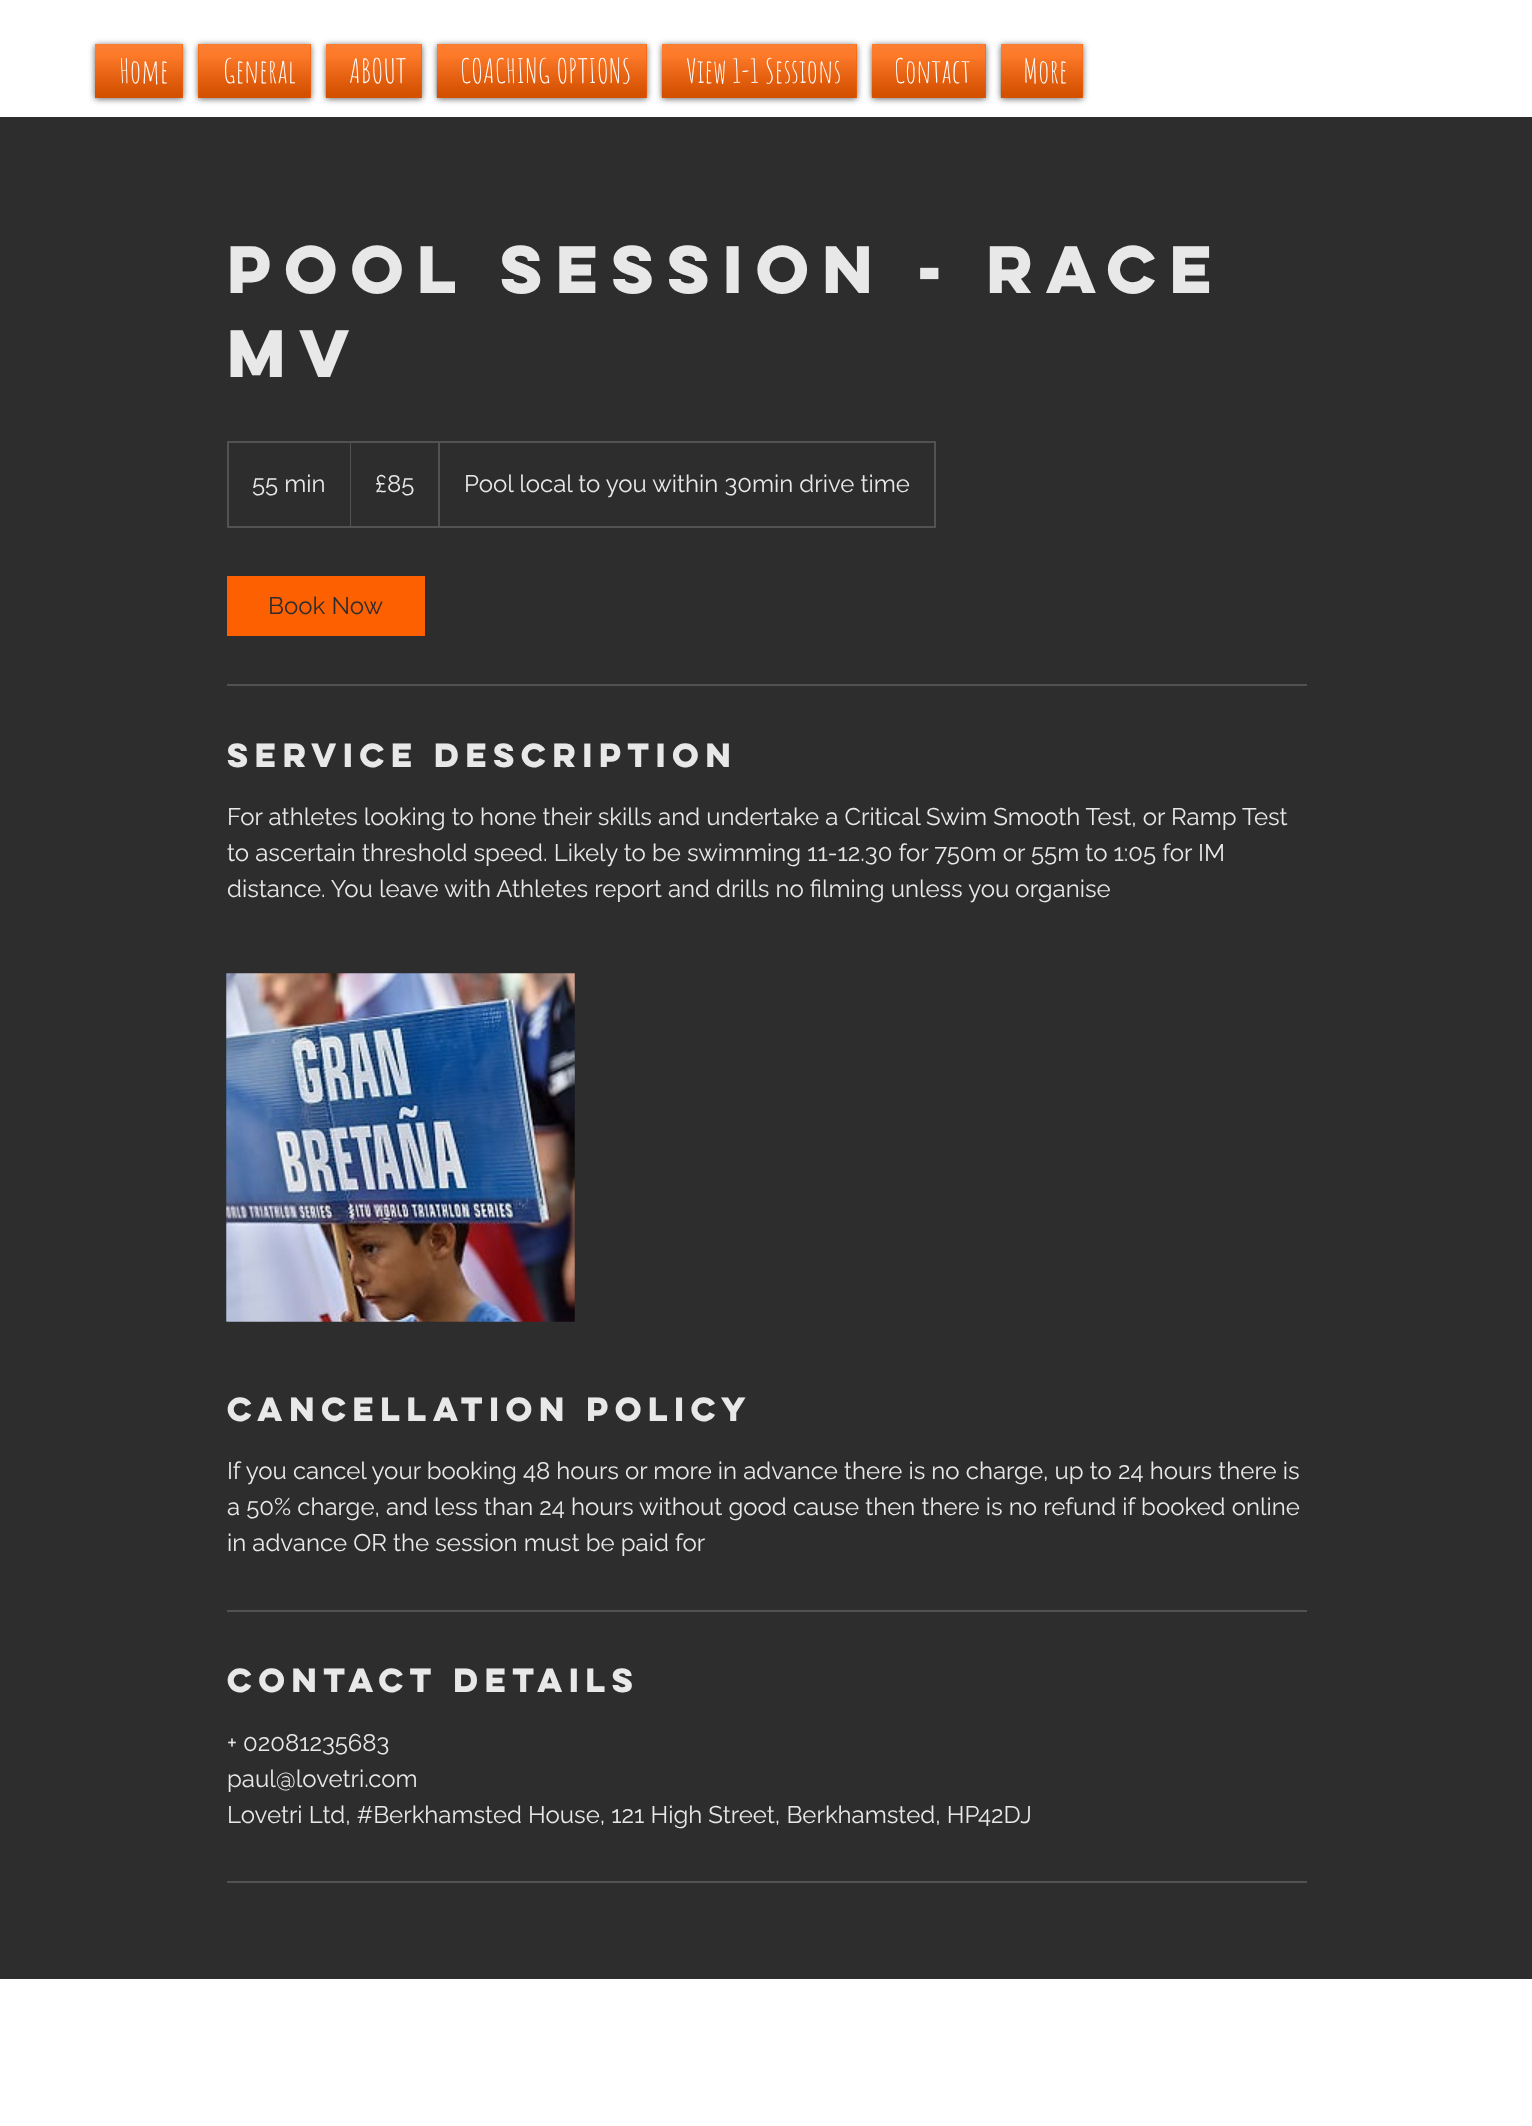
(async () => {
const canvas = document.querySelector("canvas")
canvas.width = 1532
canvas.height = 2126
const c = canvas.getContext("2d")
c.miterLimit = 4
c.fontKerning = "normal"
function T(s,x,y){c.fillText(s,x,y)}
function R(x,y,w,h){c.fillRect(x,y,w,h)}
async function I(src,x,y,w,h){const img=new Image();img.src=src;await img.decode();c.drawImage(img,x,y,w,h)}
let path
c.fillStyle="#fff"
R(0,0,1532,2126)
c.fillStyle="#00000099"
c.filter="blur(3px)"
c.beginPath()
c.rect(95,45,88,54)
c.fill()
c.filter="none"
c.fillStyle="#fc6000"
R(95,44,88,54)
await I("1.png",95,44,88,48)
await I("2.png",95,59,88,39)
c.font="33px Amatic SC"
c.fillStyle="#fff"
T("Home",119,83)
c.fillStyle="#00000099"
c.filter="blur(3px)"
c.beginPath()
c.rect(198,45,113,54)
c.fill()
c.filter="none"
c.fillStyle="#fc6000"
R(198,44,113,54)
await I("3.png",198,44,113,48)
await I("4.png",198,59,113,39)
c.fillStyle="#fff"
T("General",223,83)
c.fillStyle="#00000099"
c.filter="blur(3px)"
c.beginPath()
c.rect(326,45,96,54)
c.fill()
c.filter="none"
c.fillStyle="#fc6000"
R(326,44,96,54)
await I("5.png",326,44,96,48)
await I("6.png",325,59,97,39)
c.fillStyle="#fff"
T("ABOUT",349,83)
c.fillStyle="#00000099"
c.filter="blur(3px)"
c.beginPath()
c.rect(437,45,210,54)
c.fill()
c.filter="none"
c.fillStyle="#fc6000"
R(437,44,210,54)
await I("7.png",437,44,210,48)
await I("8.png",436,59,211,39)
c.fillStyle="#fff"
T("COACHING OPTIONS",460,83)
c.fillStyle="#00000099"
c.filter="blur(3px)"
c.beginPath()
c.rect(662,45,195,54)
c.fill()
c.filter="none"
c.fillStyle="#fc6000"
R(662,44,195,54)
await I("9.png",662,44,195,48)
await I("10.png",661,59,196,39)
c.fillStyle="#fff"
T("View 1-1 Sessions",686,83)
c.fillStyle="#00000099"
c.filter="blur(3px)"
c.beginPath()
c.rect(872,45,114,54)
c.fill()
c.filter="none"
c.fillStyle="#fc6000"
R(872,44,114,54)
await I("11.png",872,44,114,48)
await I("12.png",871,59,115,39)
c.fillStyle="#fff"
T("Contact",894,83)
c.fillStyle="#00000099"
c.filter="blur(3px)"
c.beginPath()
c.rect(1001,45,82,54)
c.fill()
c.filter="none"
c.fillStyle="#fc6000"
R(1001,44,82,54)
await I("13.png",1001,44,82,48)
await I("14.png",1000,59,84,39)
c.fillStyle="#fff"
T("More",1023,83)
c.fillStyle="#2d2d2d"
R(0,117,1532,1862)
c.font="bold 60px 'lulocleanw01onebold'"
c.fillStyle="#e8e8e8"
T("Pool Session - RACE",227,293)
T("MV",227,377)
c.strokeStyle="#525252"
c.lineWidth=2
c.strokeRect(228,442,707,85)
c.font="24px Raleway"
T("55 min",252,492)
c.fillStyle="#525252"
path = new Path2D("M350 526v-85l1 1v84z")
c.fill(path)
c.fillStyle="#e8e8e8"
T("£85",375,492)
c.save()
c.beginPath()
c.rect(228,443,707,84)
c.clip()
c.fillStyle="#525252"
path = new Path2D("M438 526v-85l2 1v84z")
c.fill(path)
c.restore()
T("Pool local to you within 30min drive time",464,492)
c.fillStyle="#fc6000"
R(227,576,198,60)
c.fillStyle="#2d2d2d"
T("Book Now",268,614)
c.fillStyle="#525252"
R(227,684,1080,2)
c.font="bold 30px 'lulocleanw01onebold'"
c.fillStyle="#e8e8e8"
T("Service Description",227,767)
c.font="24px Raleway"
T("For athletes looking to hone their skills and undertake a Critical Swim Smooth Test, or Ramp Test",227,825)
T("to ascertain threshold speed. Likely to be swimming 11-12.30 for 750m or 55m to 1:05 for IM",227,861)
T("distance. You leave with Athletes report and drills no filming unless you organise",227,897)
await I("15.png",226,973,349,349)
await I("16.png",226,973,349,349)
c.font="bold 30px 'lulocleanw01onebold'"
T("Cancellation Policy",227,1421)
c.font="24px Raleway"
T("If you cancel your booking 48 hours or more in advance there is no charge, up to 24 hours there is",227,1479)
T("a 50% charge, and less than 24 hours without good cause then there is no refund if booked online",227,1515)
T("in advance OR the session must be paid for",227,1551)
c.fillStyle="#525252"
R(227,1610,1080,2)
c.font="bold 30px 'lulocleanw01onebold'"
c.fillStyle="#e8e8e8"
T("Contact Details",227,1692)
c.font="24px Raleway"
T("+ 02081235683",227,1751)
T("paul@lovetri.com",227,1787)
T("Lovetri Ltd, #Berkhamsted House, 121 High Street, Berkhamsted, HP42DJ",227,1823)
c.fillStyle="#525252"
R(227,1881,1080,2)
})()
